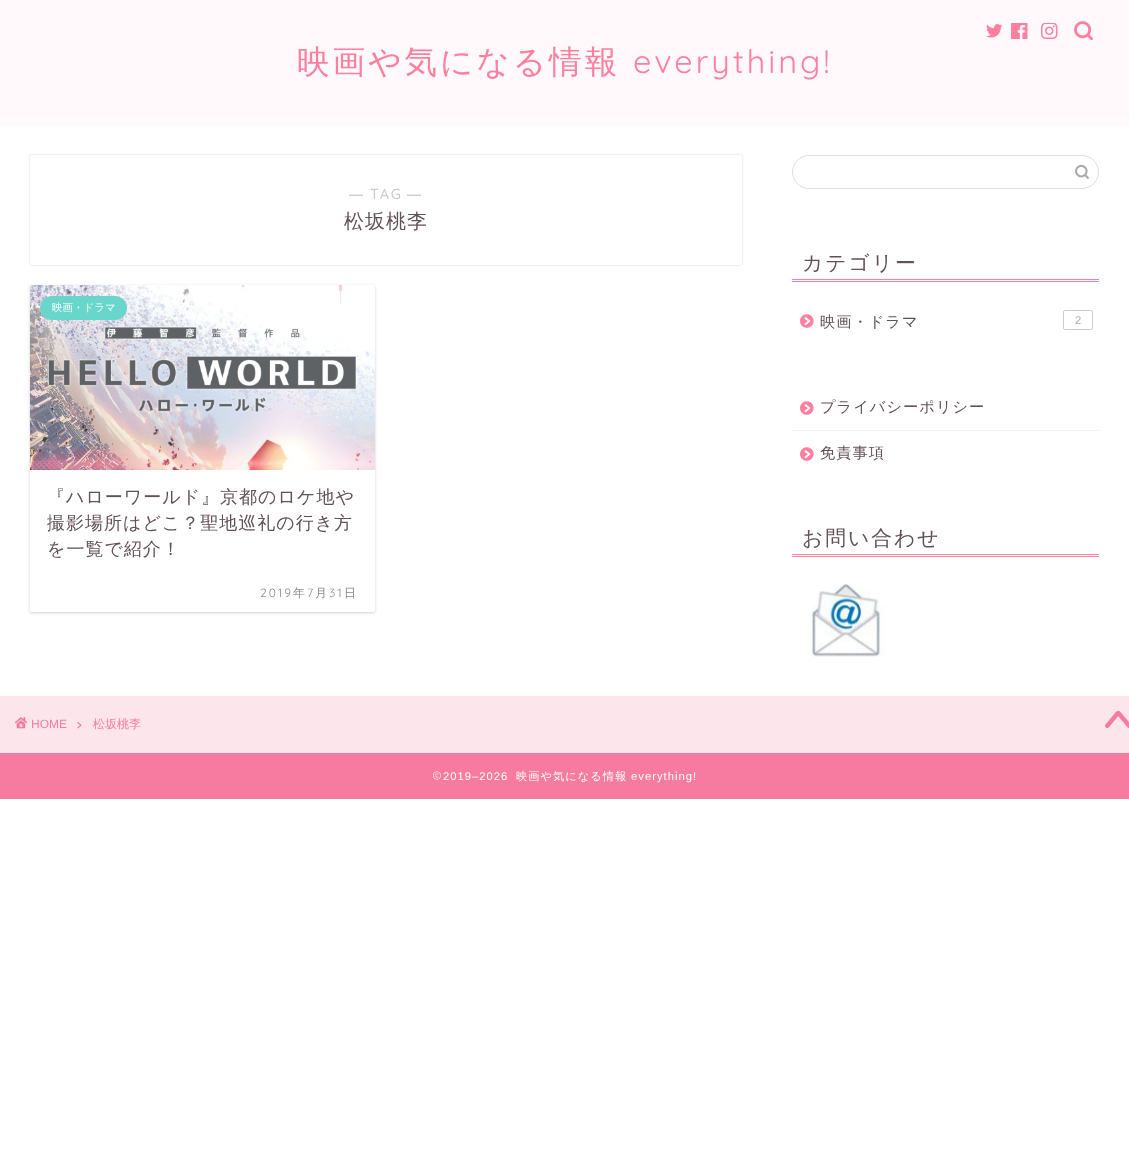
(async () => {
const canvas = document.querySelector("canvas")
canvas.width = 1129
canvas.height = 1172
const c = canvas.getContext("2d")
c.miterLimit = 4
c.fontKerning = "normal"
function T(s,x,y){c.fillText(s,x,y)}
function R(x,y,w,h){c.fillRect(x,y,w,h)}
function Q(x,y,w,h,r){c.beginPath();c.roundRect(x,y,w,h,r);c.fill()}
async function I(src,x,y,w,h){const img=new Image();img.src=src;await img.decode();c.drawImage(img,x,y,w,h)}
c.fillStyle="#fff"
R(0,0,1129,1172)
c.fillStyle="#fff9fb"
R(0,0,1129,125)
await I("1.png",986,24,17,14)
await I("2.png",1011,23,17,16)
await I("3.png",1041,23,17,16)
await I("4.png",1074,21,19,20)
c.letterSpacing="3px"
c.font="500 32.6px WenQuanYi Zen Hei"
c.fillStyle="#ff7fa1"
T("映画や気になる情報",297,73)
c.font="300 32.6px Quicksand"
T("everything!",633,73)
c.fillStyle="#0000002e"
c.filter="blur(1px)"
c.beginPath()
c.roundRect(30,155,712,110,2)
c.fill()
c.filter="none"
c.fillStyle="#fff"
Q(30,155,712,110,2)
c.letterSpacing="2px"
c.font="bold 14px Liberation Sans"
c.fillStyle="#ccc"
T("―",349,199)
c.font="bold 14px Quicksand"
T("TAG",370,199)
c.font="bold 14px Liberation Sans"
T("―",407,199)
c.letterSpacing="1px"
c.font="500 20px WenQuanYi Zen Hei"
c.fillStyle="#605156"
T("松坂桃李",344,228)
c.fillStyle="#0000002e"
c.filter="blur(1.5px)"
c.beginPath()
c.roundRect(30,286,345,327,2)
c.fill()
c.filter="none"
c.fillStyle="#fff"
Q(30,285,345,327,2)
await I("5.png",30,285,345,185)
c.fillStyle="#68d6cb"
Q(40,296,87,24,12)
c.letterSpacing="0px"
c.font="500 10.5px WenQuanYi Zen Hei"
c.fillStyle="#fff"
T("映画・ドラマ",52,311)
c.letterSpacing="1px"
c.font="500 18px WenQuanYi Zen Hei"
c.fillStyle="#605156"
T("『ハローワールド』京都のロケ地や",47,503)
T("撮影場所はどこ？聖地巡礼の行き方",47,529)
T("を一覧で紹介！",47,555)
c.letterSpacing="2px"
c.font="300 12px Quicksand"
c.fillStyle="#888"
T("2019",260,597)
c.font="500 12px WenQuanYi Zen Hei"
T("年",293,597)
c.font="300 12px Quicksand"
T("7",307,597)
c.font="500 12px WenQuanYi Zen Hei"
T("月",315,597)
c.font="300 12px Quicksand"
T("31",329,597)
c.font="500 12px WenQuanYi Zen Hei"
T("日",344,597)
c.beginPath()
c.roundRect(792.5,155.5,306,33,16.5)
c.strokeStyle="#ddd"
c.stroke()
await I("6.png",1075,164,14,15)
c.fillStyle="#ff7fa1"
R(792,279,307,1)
R(792,281,307,1)
c.font="500 20.75px WenQuanYi Zen Hei"
c.fillStyle="#605156"
T("カテゴリー",802,270)
await I("7.png",800,314,14,14)
c.letterSpacing="1px"
c.font="500 15.25px WenQuanYi Zen Hei"
T("映画・ドラマ",820,327)
c.beginPath()
c.roundRect(1063.5,310.5,29,19,1.5)
c.strokeStyle="#ccc"
c.stroke()
c.letterSpacing="0px"
c.font="11.25px Liberation Sans"
c.fillStyle="#aaa"
T("2",1075,324)
c.fillStyle="#f2f2f2"
R(792,430,307,1)
await I("7.png",800,401,14,14)
c.letterSpacing="1px"
c.font="500 15.25px WenQuanYi Zen Hei"
c.fillStyle="#605156"
T("プライバシーポリシー",820,412)
await I("7.png",800,447,14,14)
T("免責事項",820,458)
c.fillStyle="#ff7fa1"
R(792,554,307,1)
R(792,556,307,1)
c.letterSpacing="2px"
c.font="500 20.75px WenQuanYi Zen Hei"
c.fillStyle="#605156"
T("お問い合わせ",802,545)
await I("8.png",811,583,74,74)
c.fillStyle="#fde5ec"
R(0,696,1129,57)
await I("9.png",15,717,12,12)
c.letterSpacing="0px"
c.font="12px Liberation Sans"
c.fillStyle="#f77ba0"
T("HOME",31,728)
await I("10.png",77,722,5,7)
c.font="500 12px WenQuanYi Zen Hei"
T("松坂桃李",93,728)
await I("11.png",1105,710,24,18)
R(0,753,1129,46)
await I("12.png",433,771,8,9)
c.letterSpacing="1px"
c.font="11.25px Liberation Sans"
c.fillStyle="#fff"
T("2019–2026",443,780)
c.font="500 11.25px WenQuanYi Zen Hei"
T("映画や気になる情報",516,780)
c.font="11.25px Liberation Sans"
T("everything!",631,780)
})()
